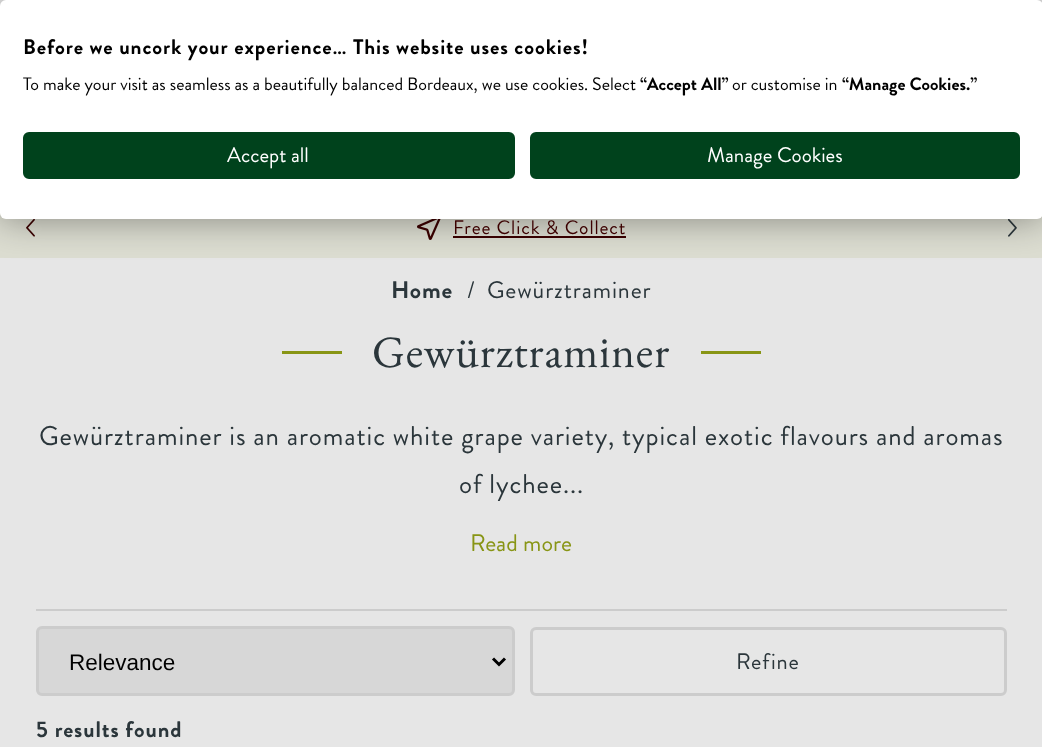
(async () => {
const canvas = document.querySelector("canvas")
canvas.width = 1042
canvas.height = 747
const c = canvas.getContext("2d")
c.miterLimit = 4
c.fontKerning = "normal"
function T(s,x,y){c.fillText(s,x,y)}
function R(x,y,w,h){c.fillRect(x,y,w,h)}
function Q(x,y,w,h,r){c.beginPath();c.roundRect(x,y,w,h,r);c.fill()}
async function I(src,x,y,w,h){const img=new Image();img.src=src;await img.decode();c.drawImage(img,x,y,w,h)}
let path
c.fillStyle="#e6e6e6"
R(0,0,1042,747)
c.fillStyle="#dcddd1"
R(0,213,1042,45)
await I("1.png",26,219,9,18)
await I("2.png",417,219,24,21)
c.fillStyle="#3b0000"
R(453,236,173,2)
await I("3.png",1008,219,9,18)
c.fillStyle="#00000066"
c.filter="blur(18px)"
c.beginPath()
c.roundRect(0,0,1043,219,6)
c.fill()
c.filter="none"
c.fillStyle="#fff"
Q(0,0,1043,219,6)
c.letterSpacing="0.9px"
c.font="bold 21px Brandon Grotesque"
c.fillStyle="#000"
T("Before we uncork your experience… This website uses cookies!",23,54)
c.letterSpacing="0px"
c.font="18px Brandon Grotesque"
T("To make your visit as seamless as a beautifully balanced Bordeaux, we use cookies. Select",23,90)
c.font="bold 18px Brandon Grotesque"
T("“Accept All”",640,90)
c.font="18px Brandon Grotesque"
T("or customise in",732,90)
c.font="bold 18px Brandon Grotesque"
T("“Manage Cookies.”",842,90)
c.fillStyle="#00421c"
c.beginPath()
c.roundRect(24,133,490,45,5)
c.fill()
c.strokeStyle="#00421c"
c.lineWidth=2
c.stroke()
c.font="21px Brandon Grotesque"
c.fillStyle="#fff"
T("Accept all",227,162)
c.fillStyle="#00421c"
c.beginPath()
c.roundRect(531,133,488,45,5)
c.fill()
c.stroke()
c.fillStyle="#fff"
T("Manage Cookies",707,162)
c.letterSpacing="0.9px"
c.font="19.5px Brandon Grotesque"
c.fillStyle="#3b0000"
T("Free Click & Collect",453,234)
c.font="bold 24px Brandon Grotesque"
c.fillStyle="#2b363b"
T("Home",391,298)
c.font="24px Brandon Grotesque"
T("/",467,298)
T("Gewürztraminer",487,298)
c.fillStyle="#889515"
R(282,351,60,3)
c.font="45px EB Garamond"
c.fillStyle="#2b363b"
T("Gewürztraminer",372,367)
c.fillStyle="#889515"
R(701,351,60,3)
c.font="27px Brandon Grotesque"
c.fillStyle="#2b363b"
T("Gewürztraminer is an aromatic white grape variety, typical exotic flavours and aromas",39,445)
T("of lychee...",459,493)
c.letterSpacing="0px"
c.font="24px Brandon Grotesque"
c.fillStyle="#889515"
T("Read more",470,551)
c.fillStyle="#ccc"
R(36,609,971,2)
c.fillStyle="#d7d7d7"
c.beginPath()
c.roundRect(37.5,627.5,476,67,4.5)
c.fill()
c.strokeStyle="#ccc"
c.lineWidth=3
c.stroke()
path = new Path2D("M493 658.5l6 6l6-6")
c.strokeStyle="#000"
c.stroke(path)
c.font="22.5px Liberation Sans"
c.fillStyle="#000"
T("Relevance",69,670)
c.beginPath()
c.roundRect(531.5,628.5,474,66,4.5)
c.strokeStyle="#ccc"
c.stroke()
c.letterSpacing="0.9px"
c.font="22.5px Brandon Grotesque"
c.fillStyle="#2b363b"
T("Refine",736,669)
c.font="bold 22.5px Brandon Grotesque"
T("5 results found",36,737)
})()
